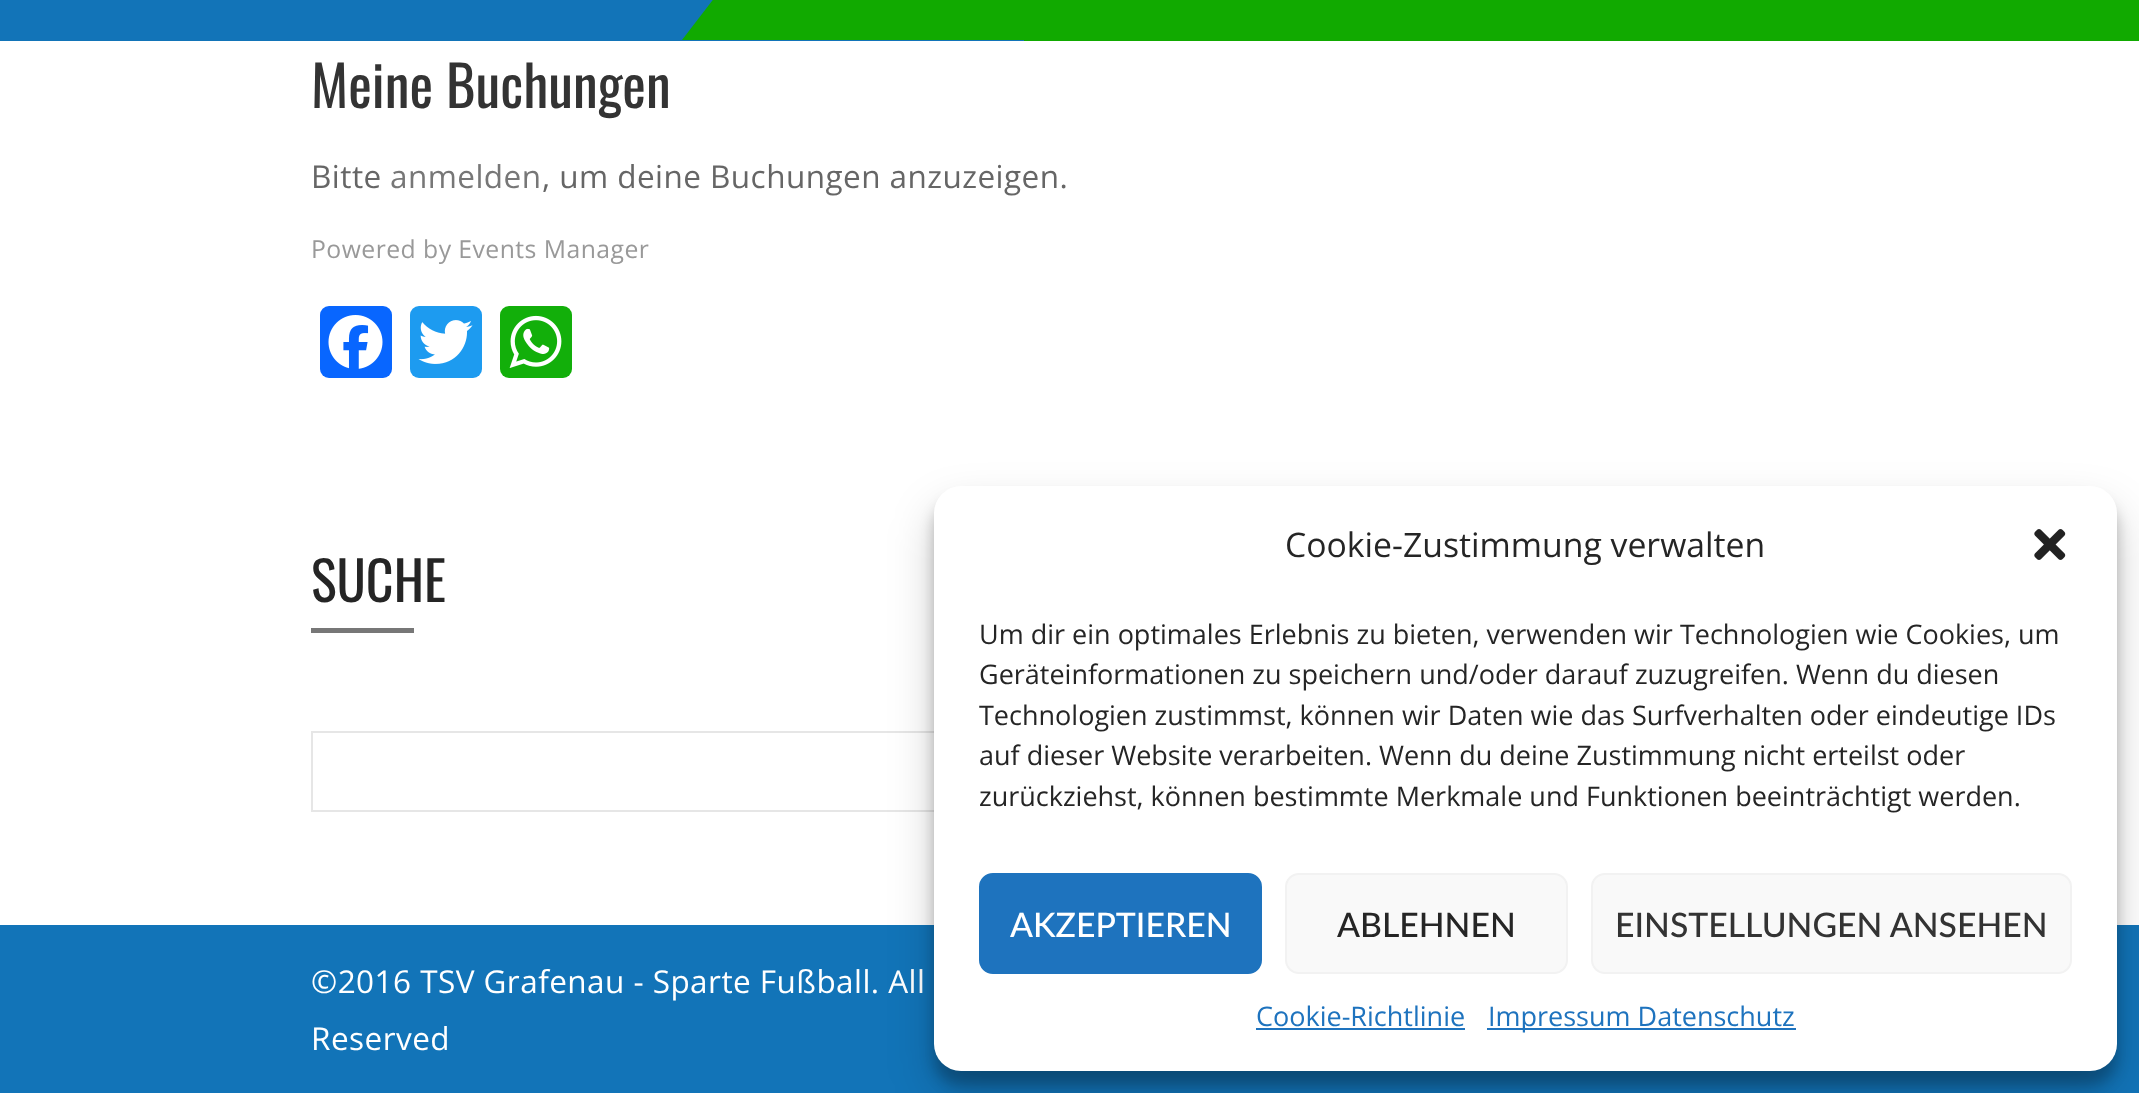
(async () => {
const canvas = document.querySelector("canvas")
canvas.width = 2139
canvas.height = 1093
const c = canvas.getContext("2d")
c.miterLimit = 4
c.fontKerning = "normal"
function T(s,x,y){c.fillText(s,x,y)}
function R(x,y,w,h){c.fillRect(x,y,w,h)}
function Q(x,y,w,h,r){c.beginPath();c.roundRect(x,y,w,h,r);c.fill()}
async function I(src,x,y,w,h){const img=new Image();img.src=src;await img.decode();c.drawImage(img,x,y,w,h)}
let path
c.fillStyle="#fff"
R(0,0,2139,1093)
c.fillStyle="#1274b8"
R(0,0,1024,41)
c.fillStyle="#1a0"
path = new Path2D("M1024 40h-342l342-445z")
c.fill(path)
R(1024,0,1115,41)
c.font="56.25px Oswald"
c.fillStyle="#333"
T("Meine Buchungen",311,108)
c.letterSpacing="0.45px"
c.font="31.5px Open Sans"
c.fillStyle="#666"
T("Bitte",311,188)
c.fillStyle="#777"
T("anmelden",390,188)
c.fillStyle="#666"
T(", um deine Buchungen anzuzeigen.",542,188)
c.font="24.75px Open Sans"
c.fillStyle="#999"
T("Powered by Events Manager",311,258)
c.fillStyle="#0866ff"
Q(320,306,72,72,9)
await I("1.png",328,315,55,54)
c.fillStyle="#1d9bf0"
Q(410,306,72,72,9)
await I("2.png",418,320,55,44)
c.fillStyle="#12af0a"
Q(500,306,72,72,9)
await I("3.png",509,315,53,53)
c.letterSpacing="0px"
c.font="54px Oswald"
c.fillStyle="#252525"
T("SUCHE",311,602)
c.fillStyle="#777"
R(311,628,103,5)
c.strokeStyle="#e6e6e6"
c.lineWidth=2
c.strokeRect(312,732,1516,79)
c.fillStyle="#1274b8"
R(0,925,2139,168)
c.letterSpacing="0.45px"
c.font="31.5px Open Sans"
c.fillStyle="#fff"
T("©2016 TSV Grafenau - Sparte Fußball. All",311,993)
T("Reserved",311,1050)
c.fillStyle="#0000003b"
c.filter="blur(7px)"
c.beginPath()
c.roundRect(934,500,1183,585,27)
c.fill()
c.filter="none"
c.fillStyle="#00000030"
c.filter="blur(22.5px)"
c.beginPath()
c.roundRect(934,509,1183,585,27)
c.fill()
c.filter="none"
c.fillStyle="#fff"
Q(934,486,1183,585,27)
c.letterSpacing="0px"
c.font="33.75px Open Sans"
c.fillStyle="#252525"
T("Cookie-Zustimmung verwalten",1285,557)
await I("4.png",2034,529,32,31)
c.font="27px Open Sans"
T("Um dir ein optimales Erlebnis zu bieten, verwenden wir Technologien wie Cookies, um",979,644)
T("Geräteinformationen zu speichern und/oder darauf zuzugreifen. Wenn du diesen",979,684)
T("Technologien zustimmst, können wir Daten wie das Surfverhalten oder eindeutige IDs",979,725)
T("auf dieser Website verarbeiten. Wenn du deine Zustimmung nicht erteilst oder",979,765)
T("zurückziehst, können bestimmte Merkmale und Funktionen beeinträchtigt werden.",979,806)
c.fillStyle="#1e73be"
c.beginPath()
c.roundRect(980,874,281,99,13)
c.fill()
c.strokeStyle="#1e73be"
c.stroke()
c.font="500 33.75px Lato"
c.fillStyle="#fff"
T("AKZEPTIEREN",1010,937)
c.fillStyle="#f9f9f9"
c.beginPath()
c.roundRect(1286,874,281,99,13)
c.fill()
c.strokeStyle="#f2f2f2"
c.stroke()
c.fillStyle="#252525"
T("ABLEHNEN",1337,937)
c.fillStyle="#f9f9f9"
c.beginPath()
c.roundRect(1592,874,479,99,13)
c.fill()
c.stroke()
c.fillStyle="#333"
T("EINSTELLUNGEN ANSEHEN",1615,937)
c.font="27px Open Sans"
c.fillStyle="#1e73be"
T("Cookie-Richtlinie",1256,1026)
R(1256,1028,209,2)
R(1487,1028,309,2)
T("Impressum Datenschutz",1488,1026)
})()
